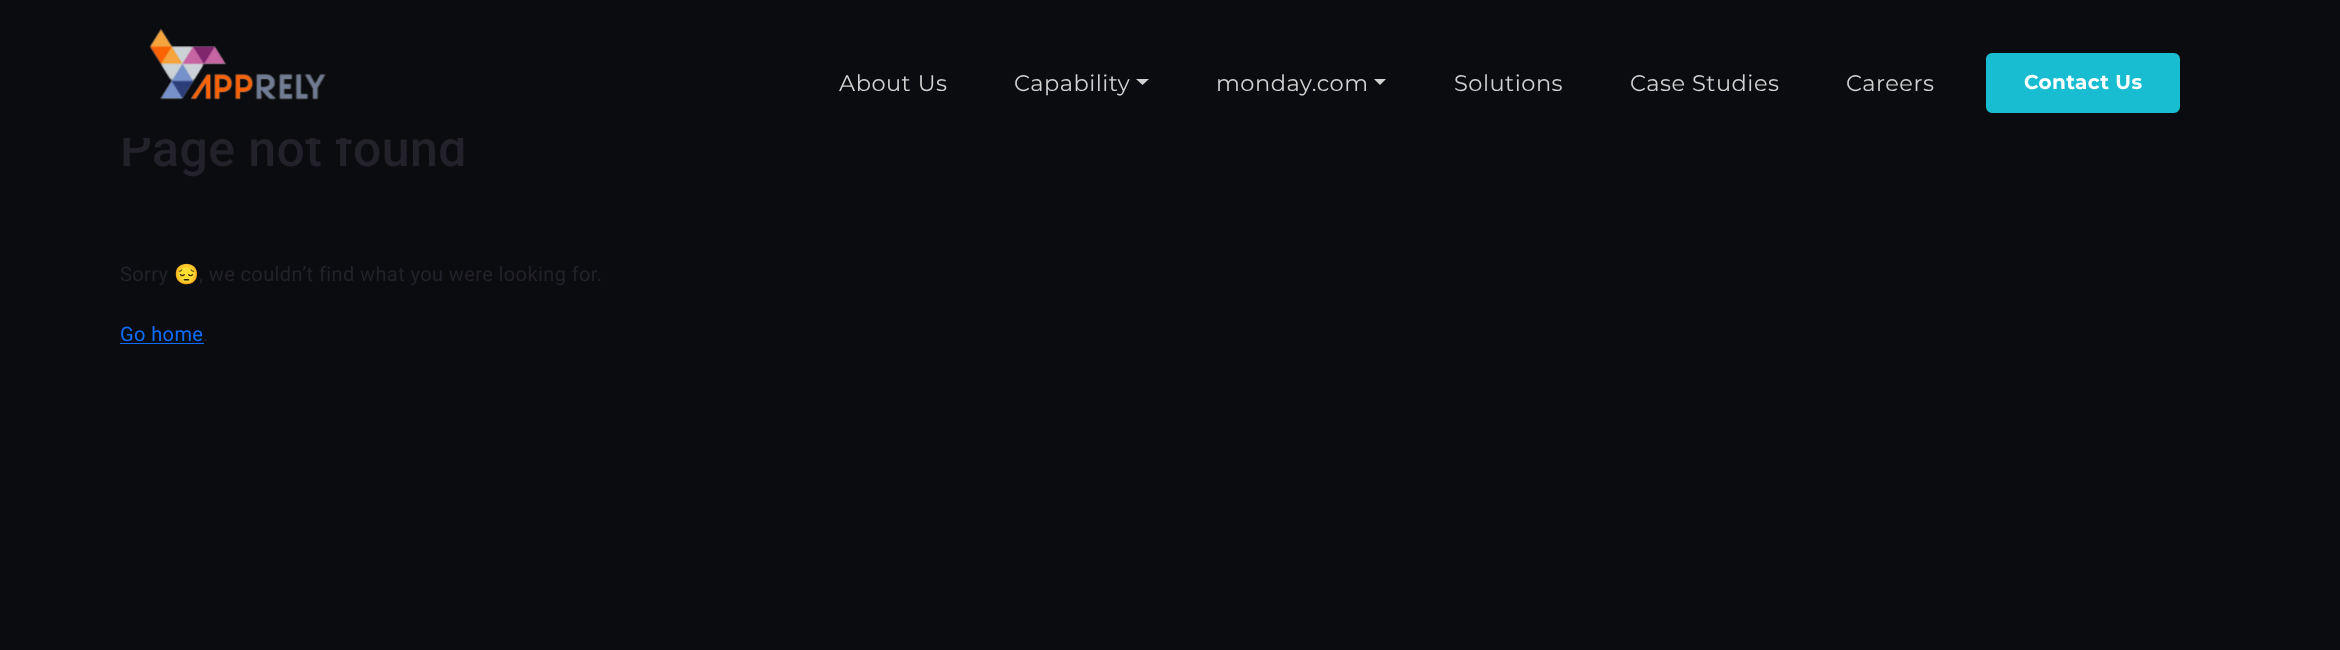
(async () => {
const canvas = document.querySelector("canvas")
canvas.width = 2340
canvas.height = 650
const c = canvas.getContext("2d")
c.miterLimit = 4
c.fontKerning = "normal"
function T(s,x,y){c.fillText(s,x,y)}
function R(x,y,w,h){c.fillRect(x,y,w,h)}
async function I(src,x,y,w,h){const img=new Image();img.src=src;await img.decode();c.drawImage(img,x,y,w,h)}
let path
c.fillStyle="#0b0c0f"
R(0,0,2340,650)
c.letterSpacing="0.4px"
c.font="500 50px Roboto"
c.fillStyle="#232129"
T("Page not found",120,166)
c.fillStyle="#0b0c0f"
R(123,128,341,10)
await I("1.png",149,28,177,72)
c.letterSpacing="0.5px"
c.font="22.5px Montserrat"
c.fillStyle="#d1d1d1"
T("About Us",839,91)
T("Capability",1014,91)
path = new Path2D("M1136 79h13l-6.5 6z")
c.fill(path)
T("monday.com",1216,91)
path = new Path2D("M1374 79h12l-6 6z")
c.fill(path)
T("Solutions",1454,91)
T("Case Studies",1630,91)
T("Careers",1846,91)
c.fillStyle="#19bdd2"
c.beginPath()
c.roundRect(1987.5,54.5,191,57,4.5)
c.fill()
c.strokeStyle="#19bdd2"
c.lineWidth=3
c.stroke()
c.letterSpacing="0.4px"
c.font="bold 20px Montserrat"
c.fillStyle="#fff"
T("Contact Us",2024,89)
c.font="20px Roboto"
c.fillStyle="#232129"
T("Sorry",120,281)
c.font="20px Noto Color Emoji"
T("😔",174,281)
c.font="20px Roboto"
T(", we couldn’t find what you were looking for.",199,281)
c.fillStyle="#0d6efd"
T("Go home",120,341)
R(120,343,84,1)
c.fillStyle="#232129"
T(".",203,341)
})()
